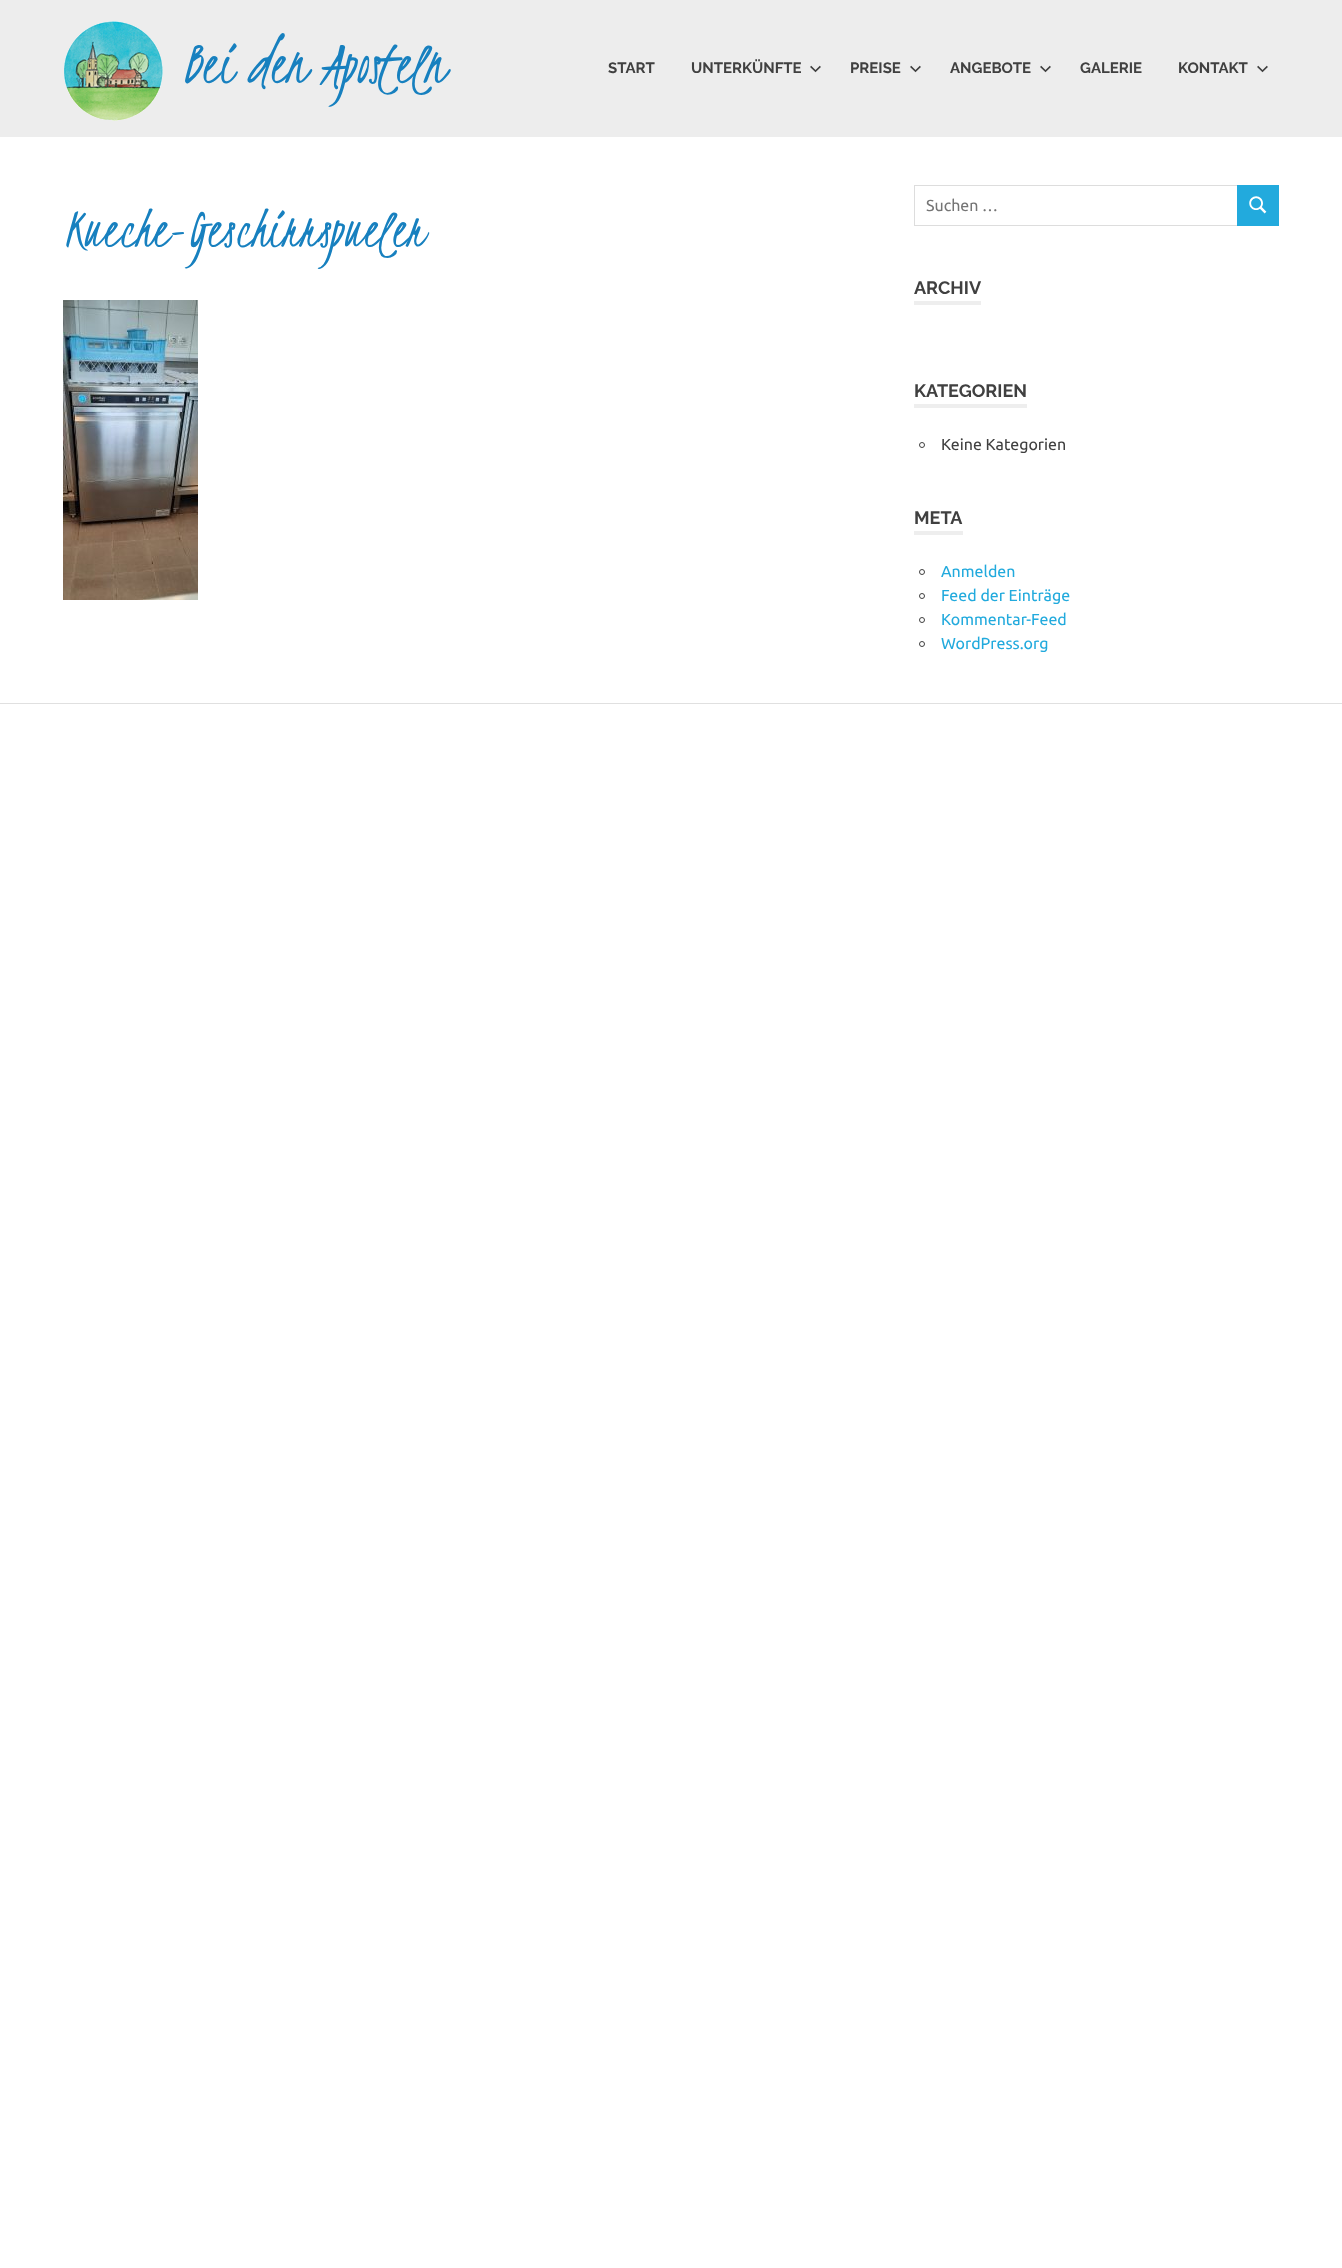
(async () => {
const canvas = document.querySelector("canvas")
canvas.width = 1342
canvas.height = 2268
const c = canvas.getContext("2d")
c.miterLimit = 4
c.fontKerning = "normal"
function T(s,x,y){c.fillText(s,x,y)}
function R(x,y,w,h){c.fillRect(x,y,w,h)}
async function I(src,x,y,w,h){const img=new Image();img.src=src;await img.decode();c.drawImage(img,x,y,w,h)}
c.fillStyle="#fff"
R(0,0,1342,2268)
c.fillStyle="#ededed"
R(0,0,1342,137)
await I("1.png",64,21,99,100)
c.font="65px Kristi"
c.fillStyle="#1780bf"
T("Bei den Aposteln",183,82)
c.font="100 15px Raleway"
c.fillStyle="#404040"
T("START",608,73)
T("UNTERKÜNFTE",691,73)
await I("2.png",810,65,11,8)
T("PREISE",850,73)
await I("2.png",910,65,11,8)
T("ANGEBOTE",950,73)
await I("2.png",1040,65,11,8)
T("GALERIE",1080,73)
T("KONTAKT",1178,73)
await I("2.png",1257,65,11,8)
c.font="60px Kristi"
c.fillStyle="#1780bf"
T("Kueche-Geschirrspueler",63,246)
await I("3.png",63,300,135,300)
c.strokeStyle="#ddd"
c.strokeRect(914.5,185.5,323,40)
c.font="16px Ubuntu"
c.fillStyle="#757575"
T("Suchen …",926,211)
c.fillStyle="#2ad"
R(1237,185,42,41)
await I("4.png",1249,196,18,18)
c.fillStyle="#eee"
R(914,301,67,4)
c.font="100 18px Raleway"
c.fillStyle="#404040"
T("ARCHIV",914,294)
c.fillStyle="#eee"
R(914,404,113,4)
c.fillStyle="#404040"
T("KATEGORIEN",914,397)
c.beginPath()
c.arc(922,445,2.5,0,7)
c.strokeStyle="#404040"
c.stroke()
c.font="16px Ubuntu"
T("Keine Kategorien",941,450)
c.fillStyle="#eee"
R(914,531,49,4)
c.font="100 18px Raleway"
c.fillStyle="#404040"
T("META",914,524)
c.beginPath()
c.arc(922,572,2.5,0,7)
c.stroke()
c.font="16px Ubuntu"
c.fillStyle="#2ad"
T("Anmelden",941,577)
c.beginPath()
c.arc(922,596,2.5,0,7)
c.stroke()
T("Feed der Einträge",941,601)
c.beginPath()
c.arc(922,620,2.5,0,7)
c.stroke()
T("Kommentar-Feed",941,625)
c.beginPath()
c.arc(922,644,2.5,0,7)
c.stroke()
T("WordPress.org",941,649)
c.fillStyle="#e0e0e0"
R(0,703,1342,1)
})()
